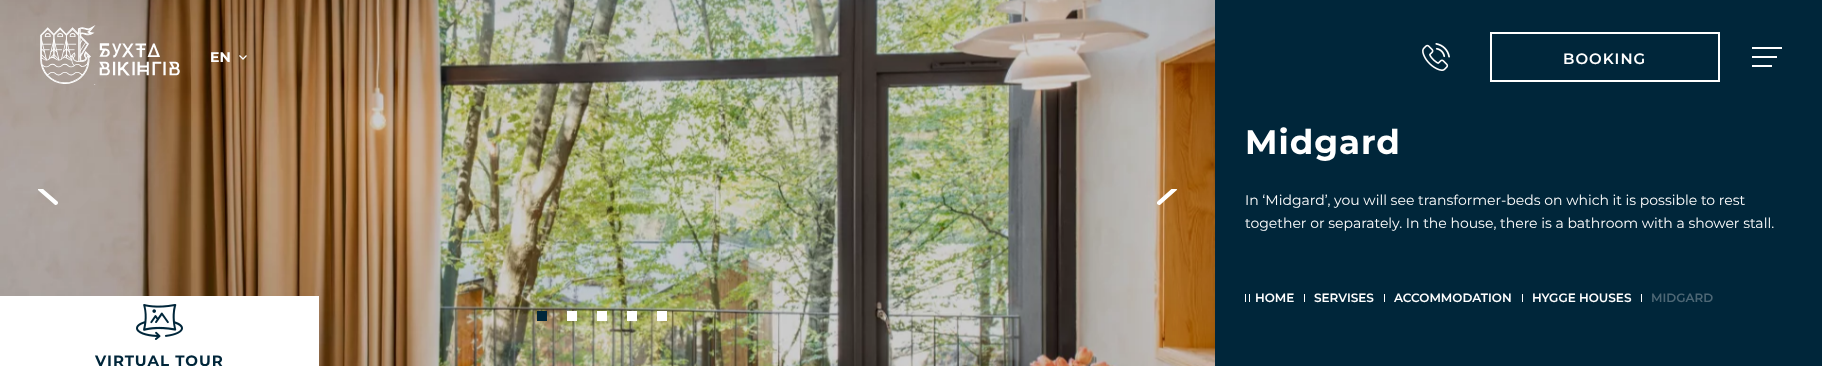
(async () => {
const canvas = document.querySelector("canvas")
canvas.width = 1822
canvas.height = 366
const c = canvas.getContext("2d")
c.miterLimit = 4
c.fontKerning = "normal"
function T(s,x,y){c.fillText(s,x,y)}
function R(x,y,w,h){c.fillRect(x,y,w,h)}
async function I(src,x,y,w,h){const img=new Image();img.src=src;await img.decode();c.drawImage(img,x,y,w,h)}
c.fillStyle="#fff"
R(0,0,1822,366)
await I("4.png",0,0,1215,366)
await I("1.png",40,25,140,60)
c.font="bold 14px Montserrat"
T("EN",210,62)
await I("2.png",239,55,8,5)
c.fillStyle="#00263a"
R(1215,0,607,366)
await I("3.png",1422,43,28,28)
c.strokeStyle="#fff"
c.lineWidth=2
c.strokeRect(1491,33,228,48)
c.letterSpacing="1px"
c.font="600 15px Montserrat"
c.fillStyle="#fff"
T("BOOKING",1563,64)
R(1752,47,30,2)
R(1752,56,25,2)
R(1752,65,20,2)
c.font="bold 34px Montserrat"
T("Midgard",1245,154)
c.letterSpacing="0px"
c.font="14px Montserrat"
T("In ‘Midgard’, you will see transformer-beds on which it is possible to rest",1245,205)
T("together or separately. In the house, there is a bathroom with a shower stall.",1245,228)
R(1245,294,1,8)
R(1249,294,1,8)
c.font="600 12px Montserrat"
T("HOME",1255,302)
R(1304,294,1,8)
T("SERVISES",1314,302)
R(1384,294,1,8)
T("ACCOMMODATION",1394,302)
R(1522,294,1,8)
T("HYGGE HOUSES",1532,302)
R(1641,294,1,8)
c.fillStyle="#4d6775"
T("MIDGARD",1651,302)
await I("5.png",38,189,20,16)
await I("6.png",1157,189,20,16)
c.fillStyle="#00263a"
R(537,311,10,10)
c.fillStyle="#fff"
R(567,311,10,10)
R(597,311,10,10)
R(627,311,10,10)
R(657,311,10,10)
R(0,296,319,70)
await I("7.png",136,304,47,36)
c.letterSpacing="1px"
c.font="bold 15px Montserrat"
c.fillStyle="#00263a"
T("VIRTUAL TOUR",95,366)
})()
